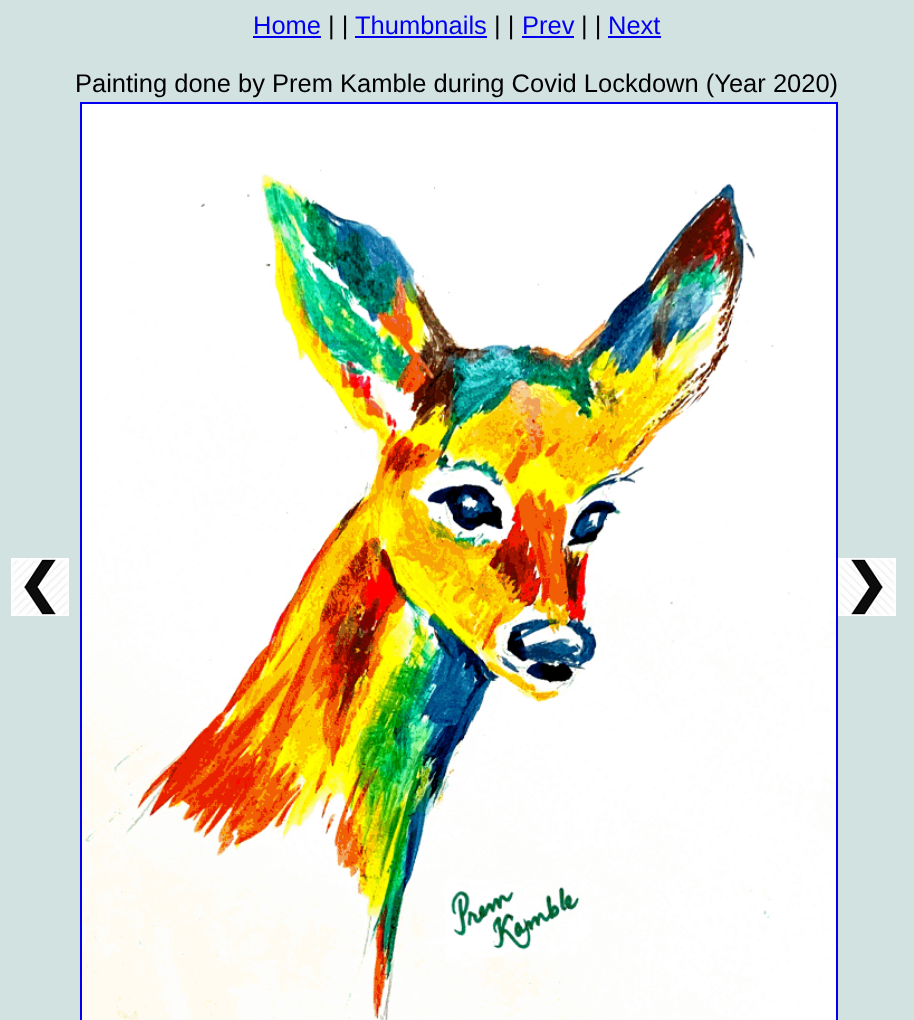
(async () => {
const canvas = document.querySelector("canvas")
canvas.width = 914
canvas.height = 1020
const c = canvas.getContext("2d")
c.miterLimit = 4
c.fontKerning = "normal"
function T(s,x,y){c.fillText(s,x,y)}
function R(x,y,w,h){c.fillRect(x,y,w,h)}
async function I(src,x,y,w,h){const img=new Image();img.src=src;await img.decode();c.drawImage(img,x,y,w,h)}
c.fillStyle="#d2e2e1"
R(0,0,914,1020)
c.font="25.5px Liberation Sans"
c.fillStyle="#00e"
T("Home",253,34)
R(253,36,68,2)
c.fillStyle="#000"
T("| |",328,34)
c.fillStyle="#00e"
T("Thumbnails",355,34)
R(355,36,132,2)
c.fillStyle="#000"
T("| |",494,34)
c.fillStyle="#00e"
T("Prev",522,34)
R(522,36,52,2)
c.fillStyle="#000"
T("| |",581,34)
c.fillStyle="#00e"
T("Next",608,34)
R(608,36,53,2)
c.fillStyle="#000"
T("Painting done by Prem Kamble during Covid Lockdown (Year 2020)",75,92)
await I("1.png",11,558,58,58)
c.strokeStyle="#00e"
c.lineWidth=2
c.strokeRect(81,103,756,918)
await I("2.png",82,104,754,916)
await I("3.png",838,558,58,58)
})()
